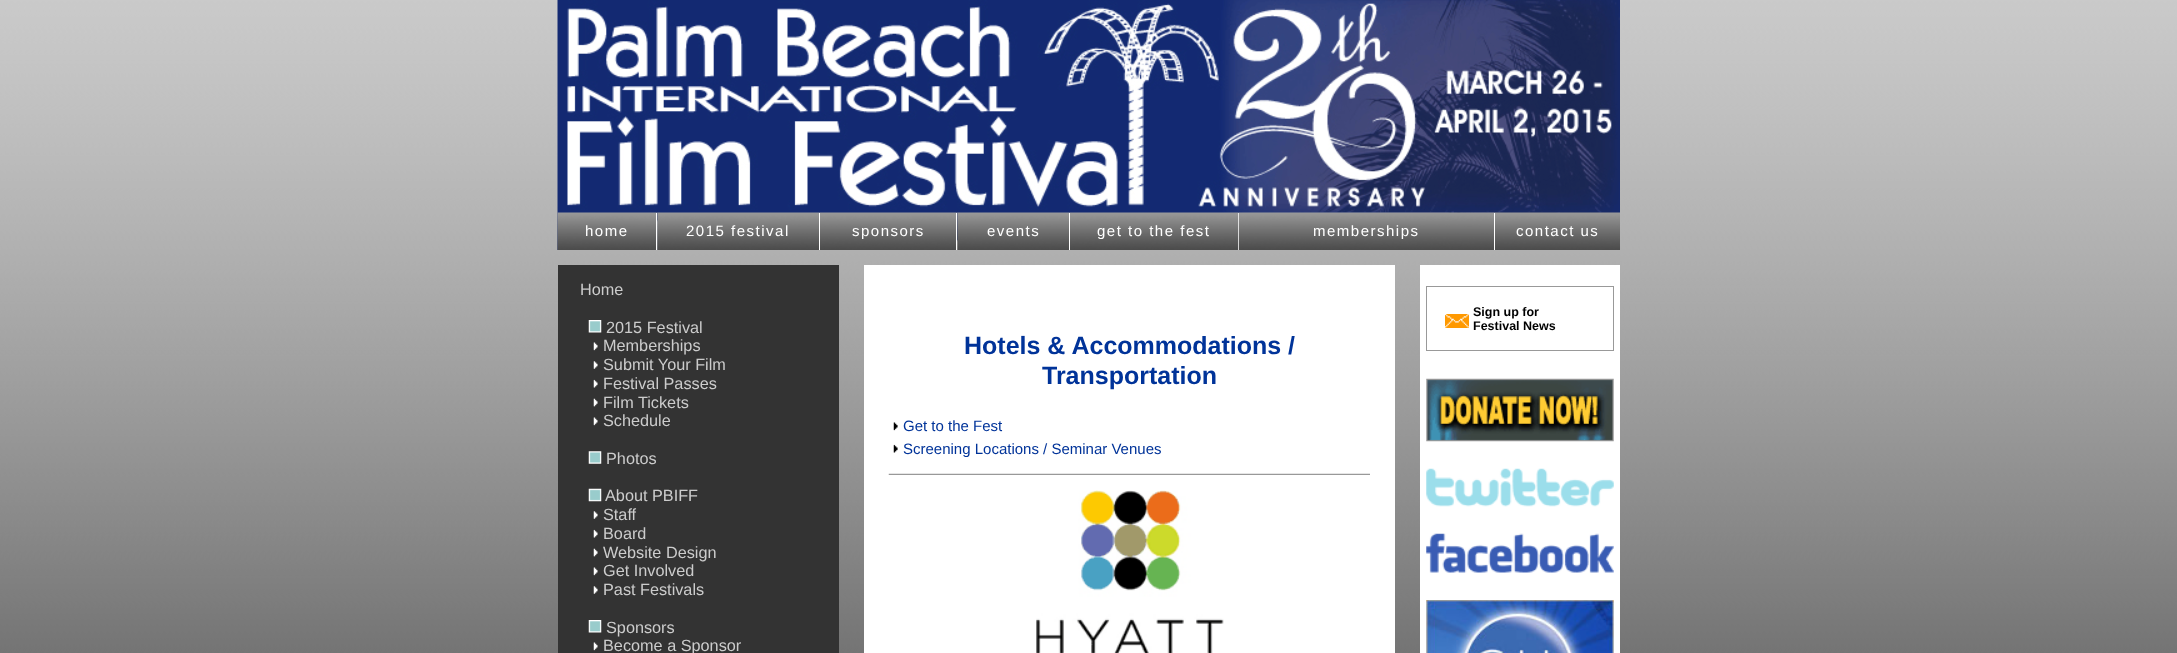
(async () => {
const canvas = document.querySelector("canvas")
canvas.width = 2177
canvas.height = 653
const c = canvas.getContext("2d")
c.miterLimit = 4
c.fontKerning = "normal"
function T(s,x,y){c.fillText(s,x,y)}
function R(x,y,w,h){c.fillRect(x,y,w,h)}
async function I(src,x,y,w,h){const img=new Image();img.src=src;await img.decode();c.drawImage(img,x,y,w,h)}
c.fillStyle="#fff"
R(0,0,2177,653)
await I("1.png",0,0,2177,653)
await I("2.png",557,0,1063,250)
await I("3.png",557,212,101,38)
R(656,213,1,37)
c.letterSpacing="1.5px"
c.font="15px Liberation Sans"
T("home",585,236)
await I("4.png",657,212,163,38)
R(819,213,1,37)
T("2015 festival",686,236)
await I("5.png",820,212,138,38)
R(956,213,1,37)
T("sponsors",852,236)
await I("6.png",957,212,113,38)
R(1069,213,1,37)
T("events",987,236)
await I("7.png",1070,212,169,38)
R(1238,213,1,37)
T("get to the fest",1097,236)
await I("8.png",1238,212,257,38)
R(1494,213,1,37)
T("memberships",1313,236)
await I("9.png",1495,212,125,38)
T("contact us",1516,236)
c.fillStyle="#333"
R(558,265,281,388)
c.fillStyle="#fff"
R(864,265,531,388)
R(1420,265,200,388)
c.letterSpacing="0px"
c.font="16.25px Liberation Sans"
c.fillStyle="#ccc"
T("Home",580,295)
await I("10.png",588,320,14,13)
T("2015 Festival",606,333)
await I("11.png",593,342,5,9)
T("Memberships",603,351)
await I("12.png",593,361,5,8)
T("Submit Your Film",603,370)
await I("13.png",593,379,5,9)
T("Festival Passes",603,389)
await I("14.png",593,398,5,9)
T("Film Tickets",603,408)
await I("11.png",593,417,5,9)
T("Schedule",603,426)
await I("15.png",588,451,14,13)
T("Photos",606,464)
await I("16.png",588,488,14,14)
T("About PBIFF",605,501)
await I("12.png",593,511,5,8)
T("Staff",603,520)
await I("13.png",593,529,5,9)
T("Board",603,539)
await I("14.png",593,548,5,9)
T("Website Design",603,558)
await I("11.png",593,567,5,9)
T("Get Involved",603,576)
await I("17.png",593,586,5,8)
T("Past Festivals",603,595)
await I("10.png",588,620,14,13)
T("Sponsors",606,633)
await I("11.png",593,642,5,9)
T("Become a Sponsor",603,651)
c.strokeStyle="#999"
c.strokeRect(1426.5,286.5,187,64)
c.fillStyle="#f90"
R(1445,314,24,14)
await I("18.png",1445,314,24,14)
c.font="bold 12.5px Liberation Sans"
c.fillStyle="#000"
T("Sign up for",1473,316)
T("Festival News",1473,330)
await I("19.png",1426,378,188,64)
await I("20.png",1426,468,188,39)
await I("21.png",1426,533,188,40)
await I("22.png",1426,600,188,53)
c.font="bold 25px Liberation Sans"
c.fillStyle="#039"
T("Hotels & Accommodations /",964,354)
T("Transportation",1042,384)
await I("23.png",893,422,5,9)
c.font="15px Liberation Sans"
T("Get to the Fest",903,431)
await I("24.png",893,444,5,9)
T("Screening Locations / Seminar Venues",903,454)
await I("25.png",888,473,482,2)
await I("26.png",1036,490,188,163)
})()
